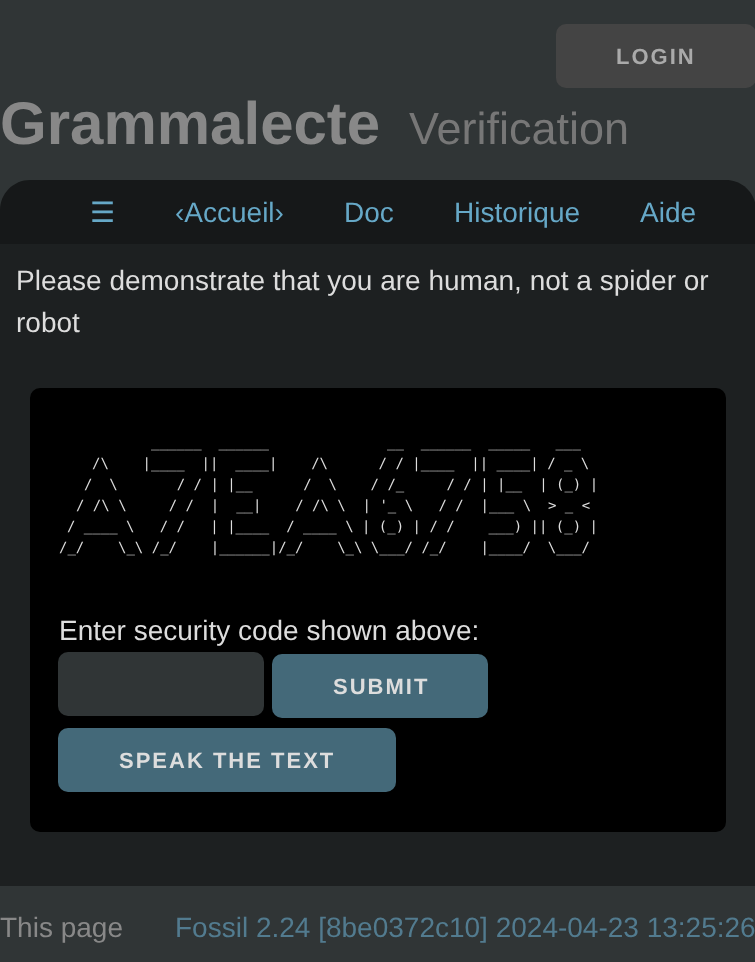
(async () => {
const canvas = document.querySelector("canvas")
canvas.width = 755
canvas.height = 962
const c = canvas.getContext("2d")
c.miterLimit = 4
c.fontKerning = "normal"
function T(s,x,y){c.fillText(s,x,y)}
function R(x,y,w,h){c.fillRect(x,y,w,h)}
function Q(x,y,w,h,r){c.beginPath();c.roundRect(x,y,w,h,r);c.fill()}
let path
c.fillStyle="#303536"
R(0,0,755,962)
c.fillStyle="#444"
Q(556,24,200,64,10)
c.letterSpacing="2px"
c.font="bold 22px Liberation Sans"
c.fillStyle="#aaa"
T("LOGIN",616,64)
c.letterSpacing="0px"
c.font="bold 60px Liberation Sans"
c.fillStyle="#888"
T("Grammalecte",0,144)
c.font="45px Liberation Sans"
c.fillStyle="#777"
T("Verification",409,144)
c.fillStyle="#161819"
path = new Path2D("M30 180h696c16.5 0 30 13.5 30 30v34h-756v-34c0-16.5 13.5-30 30-30z")
c.fill(path)
c.font="28px DejaVu Sans"
c.fillStyle="#66a8c7"
T("☰",90,222)
c.font="28px Liberation Sans"
T("‹Accueil›",175,222)
T("Doc",344,222)
T("Historique",454,222)
T("Aide",640,222)
c.fillStyle="#1d2021"
R(0,244,755,642)
c.fillStyle="#ddd"
T("Please demonstrate that you are human, not a spider or",16,290)
T("robot",16,332)
c.fillStyle="#000"
c.beginPath()
c.roundRect(31,389,694,442,9)
c.fill()
c.strokeStyle="#000"
c.lineWidth=2
c.stroke()
c.font="14px DejaVu Sans Mono"
c.fillStyle="#ddd"
T("______  ______              __  ______  _____   ___",151,447)
T("/\\    |____  ||  ____|    /\\      / / |____  || ____| / _ \\",92,468)
T("/  \\       / / | |__      /  \\    / /_     / / | |__  | (_) |",84,489)
T("/ /\\ \\     / /  |  __|    / /\\ \\  | '_ \\   / /  |___ \\  > _ <",76,510)
T("/ ____ \\   / /   | |____  / ____ \\ | (_) | / /    ___) || (_) |",67,531)
T("/_/    \\_\\ /_/    |______|/_/    \\_\\ \\___/ /_/    |____/  \\___/",59,552)
c.font="28px Liberation Sans"
T("Enter security code shown above:",59,640)
c.fillStyle="#303536"
Q(58,652,206,64,10)
c.fillStyle="#446979"
Q(272,654,216,64,10)
c.letterSpacing="2px"
c.font="bold 22px Liberation Sans"
c.fillStyle="#ddd"
T("SUBMIT",333,694)
c.fillStyle="#446979"
Q(58,728,338,64,10)
c.fillStyle="#ddd"
T("SPEAK THE TEXT",119,768)
c.letterSpacing="0px"
c.font="28px Liberation Sans"
c.fillStyle="#888"
T("This page",0,937)
c.fillStyle="#527b8f"
T("Fossil 2.24 [8be0372c10] 2024-04-23 13:25:26",175,937)
})()
